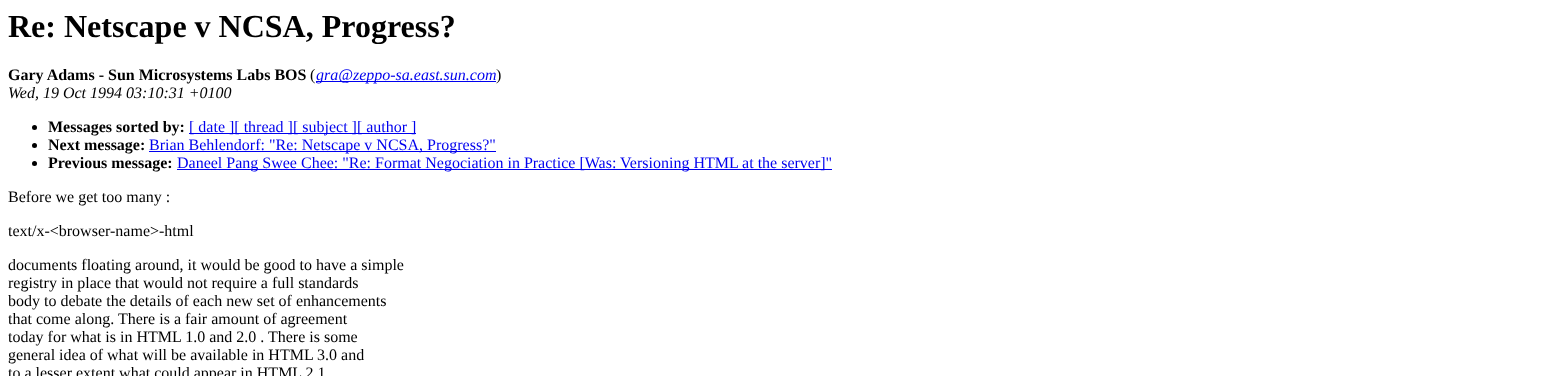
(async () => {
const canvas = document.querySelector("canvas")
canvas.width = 1556
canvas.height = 376
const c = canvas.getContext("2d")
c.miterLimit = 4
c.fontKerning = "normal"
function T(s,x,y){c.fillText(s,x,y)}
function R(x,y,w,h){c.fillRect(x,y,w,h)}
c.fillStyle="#fff"
R(0,0,1556,376)
c.font="bold 32px Liberation Serif"
c.fillStyle="#000"
T("Re: Netscape v NCSA, Progress?",8,37)
c.font="bold 16px Liberation Serif"
T("Gary Adams - Sun Microsystems Labs BOS",8,80)
c.font="16px Liberation Serif"
T("(",310,80)
c.fillStyle="#00e"
R(316,81,180,1)
c.font="italic 16px Liberation Serif"
T("gra@zeppo-sa.east.sun.com",316,80)
c.font="16px Liberation Serif"
c.fillStyle="#000"
T(")",496,80)
c.font="italic 16px Liberation Serif"
T("Wed, 19 Oct 1994 03:10:31 +0100",8,98)
c.beginPath()
c.arc(34.5,127.5,2.5,0,7)
c.fill()
c.font="bold 16px Liberation Serif"
T("Messages sorted by:",48,132)
c.fillStyle="#00e"
R(189,133,227,1)
c.font="16px Liberation Serif"
T("[ date ][ thread ][ subject ][ author ]",189,132)
c.fillStyle="#000"
c.beginPath()
c.arc(34.5,145.5,2.5,0,7)
c.fill()
c.font="bold 16px Liberation Serif"
T("Next message:",48,150)
c.fillStyle="#00e"
R(149,151,347,1)
c.font="16px Liberation Serif"
T("Brian Behlendorf: \"Re: Netscape v NCSA, Progress?\"",149,150)
c.fillStyle="#000"
c.beginPath()
c.arc(34.5,163.5,2.5,0,7)
c.fill()
c.font="bold 16px Liberation Serif"
T("Previous message:",48,168)
c.fillStyle="#00e"
R(177,169,655,1)
c.font="16px Liberation Serif"
T("Daneel Pang Swee Chee: \"Re: Format Negociation in Practice [Was: Versioning HTML at the server]\"",177,168)
c.fillStyle="#000"
T("Before we get too many :",8,202)
T("text/x-<browser-name>-html",8,236)
T("documents floating around, it would be good to have a simple",8,270)
T("registry in place that would not require a full standards",8,288)
T("body to debate the details of each new set of enhancements",8,306)
T("that come along. There is a fair amount of agreement",8,324)
T("today for what is in HTML 1.0 and 2.0 . There is some",8,342)
T("general idea of what will be available in HTML 3.0 and",8,360)
T("to a lesser extent what could appear in HTML 2.1",8,378)
})()
